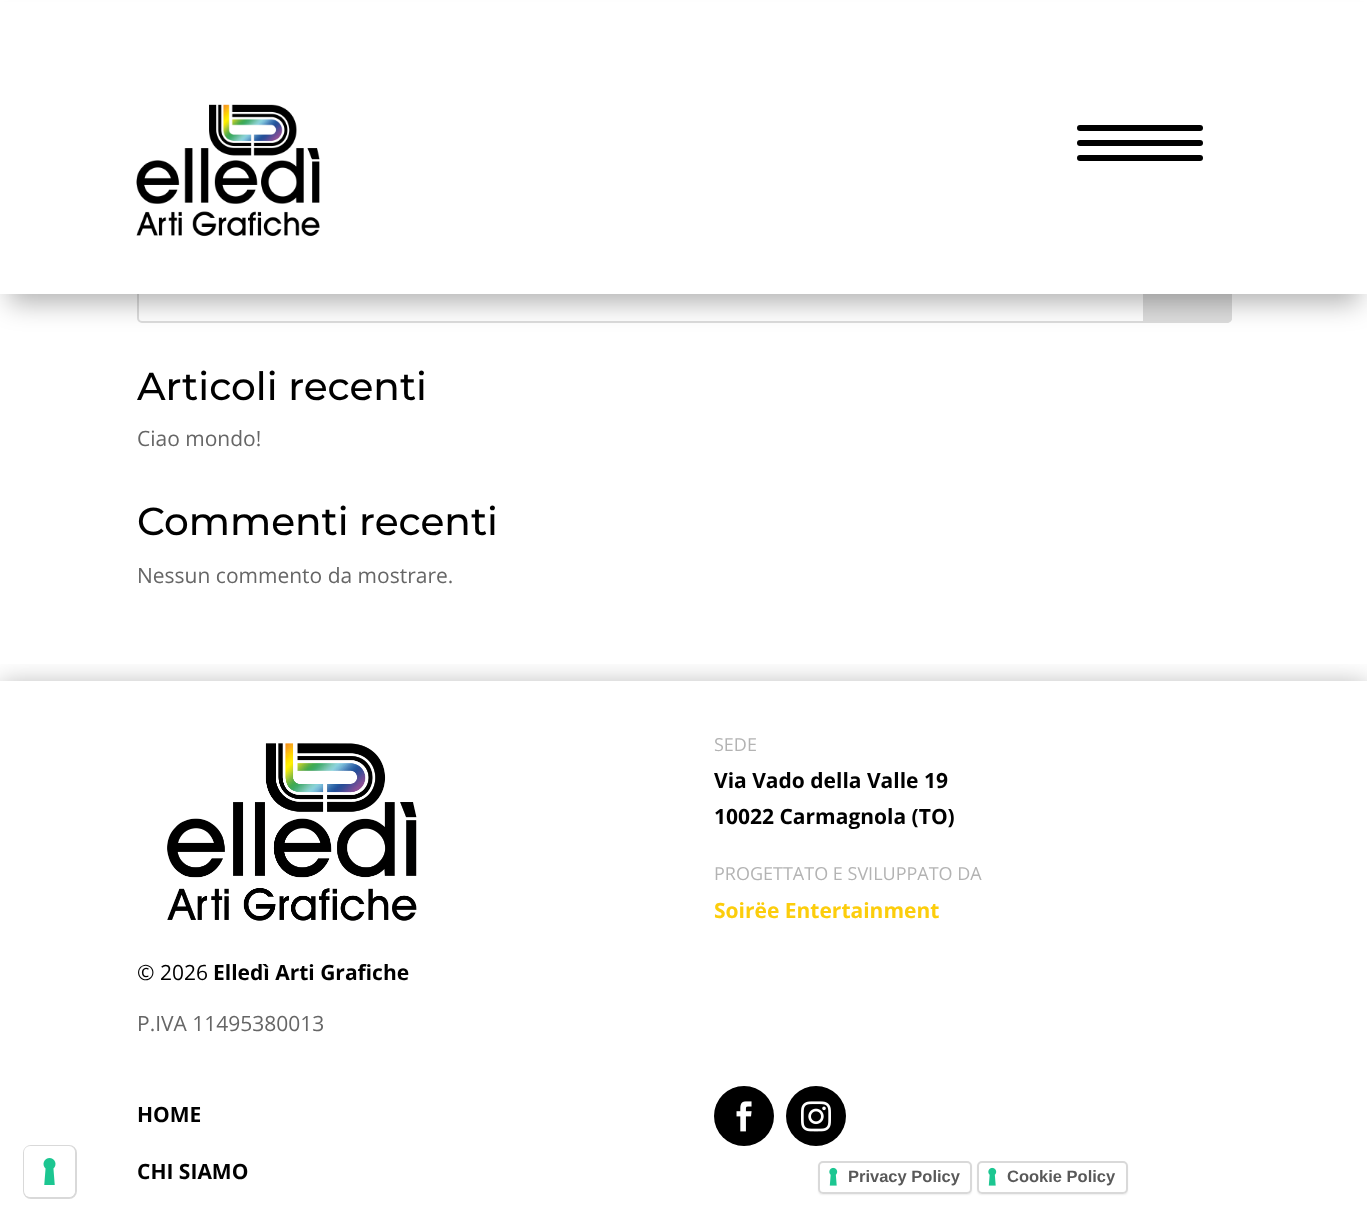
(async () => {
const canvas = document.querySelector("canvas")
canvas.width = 1367
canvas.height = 1220
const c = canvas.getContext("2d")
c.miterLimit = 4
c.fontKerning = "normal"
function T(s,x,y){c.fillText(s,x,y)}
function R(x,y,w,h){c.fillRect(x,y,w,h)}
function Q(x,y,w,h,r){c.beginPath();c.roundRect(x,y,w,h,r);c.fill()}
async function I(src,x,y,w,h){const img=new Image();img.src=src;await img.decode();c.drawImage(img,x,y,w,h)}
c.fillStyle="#fff"
R(0,0,1367,1220)
c.save()
c.beginPath()
c.rect(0,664,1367,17)
c.clip()
c.fillStyle="#0000004d"
c.filter="blur(13.5px)"
c.beginPath()
c.rect(0,684,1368,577)
c.fill()
c.filter="none"
c.restore()
c.beginPath()
c.roundRect(24,1146,52,52,7)
c.strokeStyle="#d9d9d9"
c.lineWidth=2
c.stroke()
Q(24,1146,51,51,6)
await I("1.png",43,1158,13,27)
c.beginPath()
c.roundRect(138,264,1093,58,4)
c.strokeStyle="#ddd"
c.stroke()
c.fillStyle="#ddd"
c.beginPath()
c.roundRect(1144,264,87,58,[0,4,4,0])
c.fill()
c.stroke()
c.fillStyle="#0000004d"
c.filter="blur(13.5px)"
c.beginPath()
c.rect(9,27,1350,276)
c.fill()
c.filter="none"
c.fillStyle="#fff"
R(0,2,1367,292)
await I("2.png",136,104,184,133)
c.fillStyle="#000"
Q(1077,125,126,6,3)
Q(1077,140,126,6,3)
Q(1077,155,126,6,3)
c.font="500 39px Montserrat"
T("Articoli recenti",137,400)
c.font="21px Open Sans"
c.fillStyle="#666"
T("Ciao mondo!",137,446)
c.font="500 39px Montserrat"
c.fillStyle="#000"
T("Commenti recenti",137,535)
c.font="21px Open Sans"
c.fillStyle="#666"
T("Nessun commento da mostrare.",137,583)
c.font="18px Open Sans"
c.fillStyle="#b3b3b3"
T("SEDE",714,751)
c.font="bold 21px Open Sans"
c.fillStyle="#000"
T("Via Vado della Valle 19",714,788)
T("10022 Carmagnola (TO)",714,824)
c.font="18px Open Sans"
c.fillStyle="#b3b3b3"
T("PROGETTATO E SVILUPPATO DA",714,880)
c.font="bold 21px Open Sans"
c.fillStyle="#fccd0c"
T("Soirëe Entertainment",714,918)
await I("3.png",167,743,250,178)
c.font="21px Open Sans"
c.fillStyle="#000"
T("© 2026",137,980)
c.font="bold 21px Open Sans"
T("Elledì Arti Grafiche",213,980)
c.font="21px Open Sans"
c.fillStyle="#666"
T("P.IVA 11495380013",137,1031)
c.font="bold 21px Open Sans"
c.fillStyle="#000"
T("HOME",137,1122)
T("CHI SIAMO",137,1179)
c.beginPath()
c.arc(744,1116,30,0,7)
c.fill()
await I("4.png",736,1101,16,31)
c.beginPath()
c.arc(816,1116,30,0,7)
c.fill()
await I("5.png",801,1101,30,31)
c.fillStyle="#00000026"
c.filter="blur(1px)"
c.beginPath()
c.roundRect(819,1164,152,30,3)
c.fill()
c.filter="none"
c.fillStyle="#fff"
Q(818,1161,154,33,5)
await I("6.png",829,1167,9,19)
c.beginPath()
c.roundRect(819,1162,152,31,4)
c.strokeStyle="#d9d9d9"
c.stroke()
c.font="bold 16.5px Liberation Sans"
c.fillStyle="#595959"
T("Privacy Policy",848,1182)
c.fillStyle="#00000026"
c.filter="blur(1px)"
c.beginPath()
c.roundRect(978,1164,149,30,3)
c.fill()
c.filter="none"
c.fillStyle="#fff"
Q(977,1161,151,33,5)
await I("6.png",988,1167,9,19)
c.beginPath()
c.roundRect(978,1162,149,31,4)
c.stroke()
c.fillStyle="#595959"
T("Cookie Policy",1007,1182)
})()
